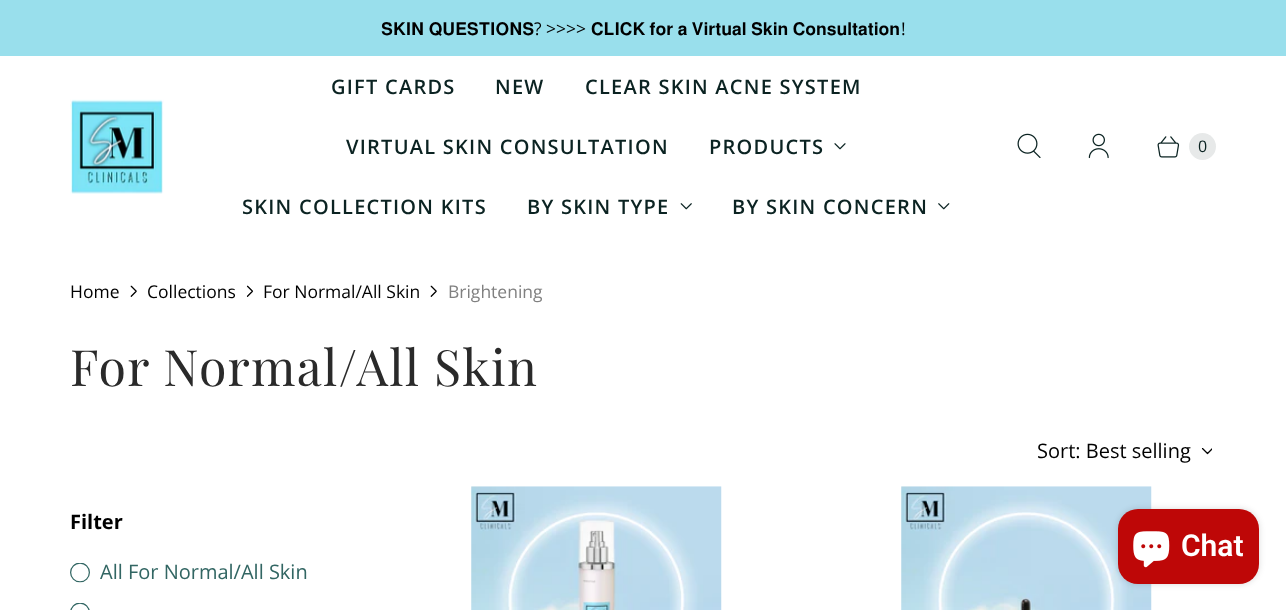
(async () => {
const canvas = document.querySelector("canvas")
canvas.width = 1286
canvas.height = 610
const c = canvas.getContext("2d")
c.miterLimit = 4
c.fontKerning = "normal"
function T(s,x,y){c.fillText(s,x,y)}
function R(x,y,w,h){c.fillRect(x,y,w,h)}
function Q(x,y,w,h,r){c.beginPath();c.roundRect(x,y,w,h,r);c.fill()}
async function I(src,x,y,w,h){const img=new Image();img.src=src;await img.decode();c.drawImage(img,x,y,w,h)}
c.fillStyle="#fff"
R(0,0,1286,610)
c.fillStyle="#99dfec"
R(0,0,1286,56)
c.font="17.5px FreeSans"
c.fillStyle="#000"
T("𝐒𝐊𝐈𝐍 𝐐𝐔𝐄𝐒𝐓𝐈𝐎𝐍𝐒",381,35)
c.font="17.5px Open Sans"
T("? >>>>",534,35)
c.font="17.5px FreeSans"
T("𝐂𝐋𝐈𝐂𝐊 𝐟𝐨𝐫 𝐚 𝐕𝐢𝐫𝐭𝐮𝐚𝐥 𝐒𝐤𝐢𝐧 𝐂𝐨𝐧𝐬𝐮𝐥𝐭𝐚𝐭𝐢𝐨𝐧",591,35)
c.font="17.5px Open Sans"
T("!",901,35)
await I("1.png",70,99,94,95)
c.letterSpacing="1.25px"
c.font="600 20px Open Sans"
c.fillStyle="#0b2322"
T("GIFT CARDS",331,94)
T("NEW",495,94)
T("CLEAR SKIN ACNE SYSTEM",585,94)
T("VIRTUAL SKIN CONSULTATION",346,154)
T("PRODUCTS",709,154)
await I("2.png",834,143,12,7)
T("SKIN COLLECTION KITS",242,214)
T("BY SKIN TYPE",527,214)
await I("3.png",680,203,12,7)
T("BY SKIN CONCERN",732,214)
await I("4.png",938,203,12,7)
await I("5.png",1017,133,24,25)
await I("6.png",1088,133,21,26)
await I("7.png",1157,136,23,22)
c.fillStyle="#e7e9e9"
c.beginPath()
c.arc(1202.5,146.5,13.5,0,7)
c.fill()
c.letterSpacing="0px"
c.font="16px Open Sans"
c.fillStyle="#0b2322"
T("0",1198,152)
c.font="17.5px Open Sans"
c.fillStyle="#000"
T("Home",70,298)
await I("8.png",130,285,7,12)
T("Collections",147,298)
await I("9.png",246,285,8,12)
T("For Normal/All Skin",263,298)
await I("8.png",430,285,7,12)
c.fillStyle="#808080"
T("Brightening",448,298)
c.letterSpacing="1.25px"
c.font="50px Playfair Display"
c.fillStyle="#2a2a2a"
T("For Normal/All Skin",70,386)
c.letterSpacing="0px"
c.font="20px Open Sans"
c.fillStyle="#000"
T("Sort: Best selling",1037,458)
await I("10.png",1201,448,11,7)
await I("11.png",471,486,251,124)
await I("12.png",901,486,251,124)
c.font="bold 20px Open Sans"
T("Filter",70,529)
await I("13.png",70,563,20,20)
c.font="20px Open Sans"
c.fillStyle="#326663"
T("All For Normal/All Skin",100,579)
await I("14.png",70,603,20,7)
c.fillStyle="#00000026"
c.filter="blur(3px)"
c.beginPath()
c.roundRect(1118,509,141,75,20)
c.fill()
c.filter="none"
c.fillStyle="#be0707"
Q(1118,509,141,75,20)
await I("15.png",1133,531,37,37)
c.font="600 30px Roboto"
c.fillStyle="#fff"
T("Chat",1181,556)
})()
